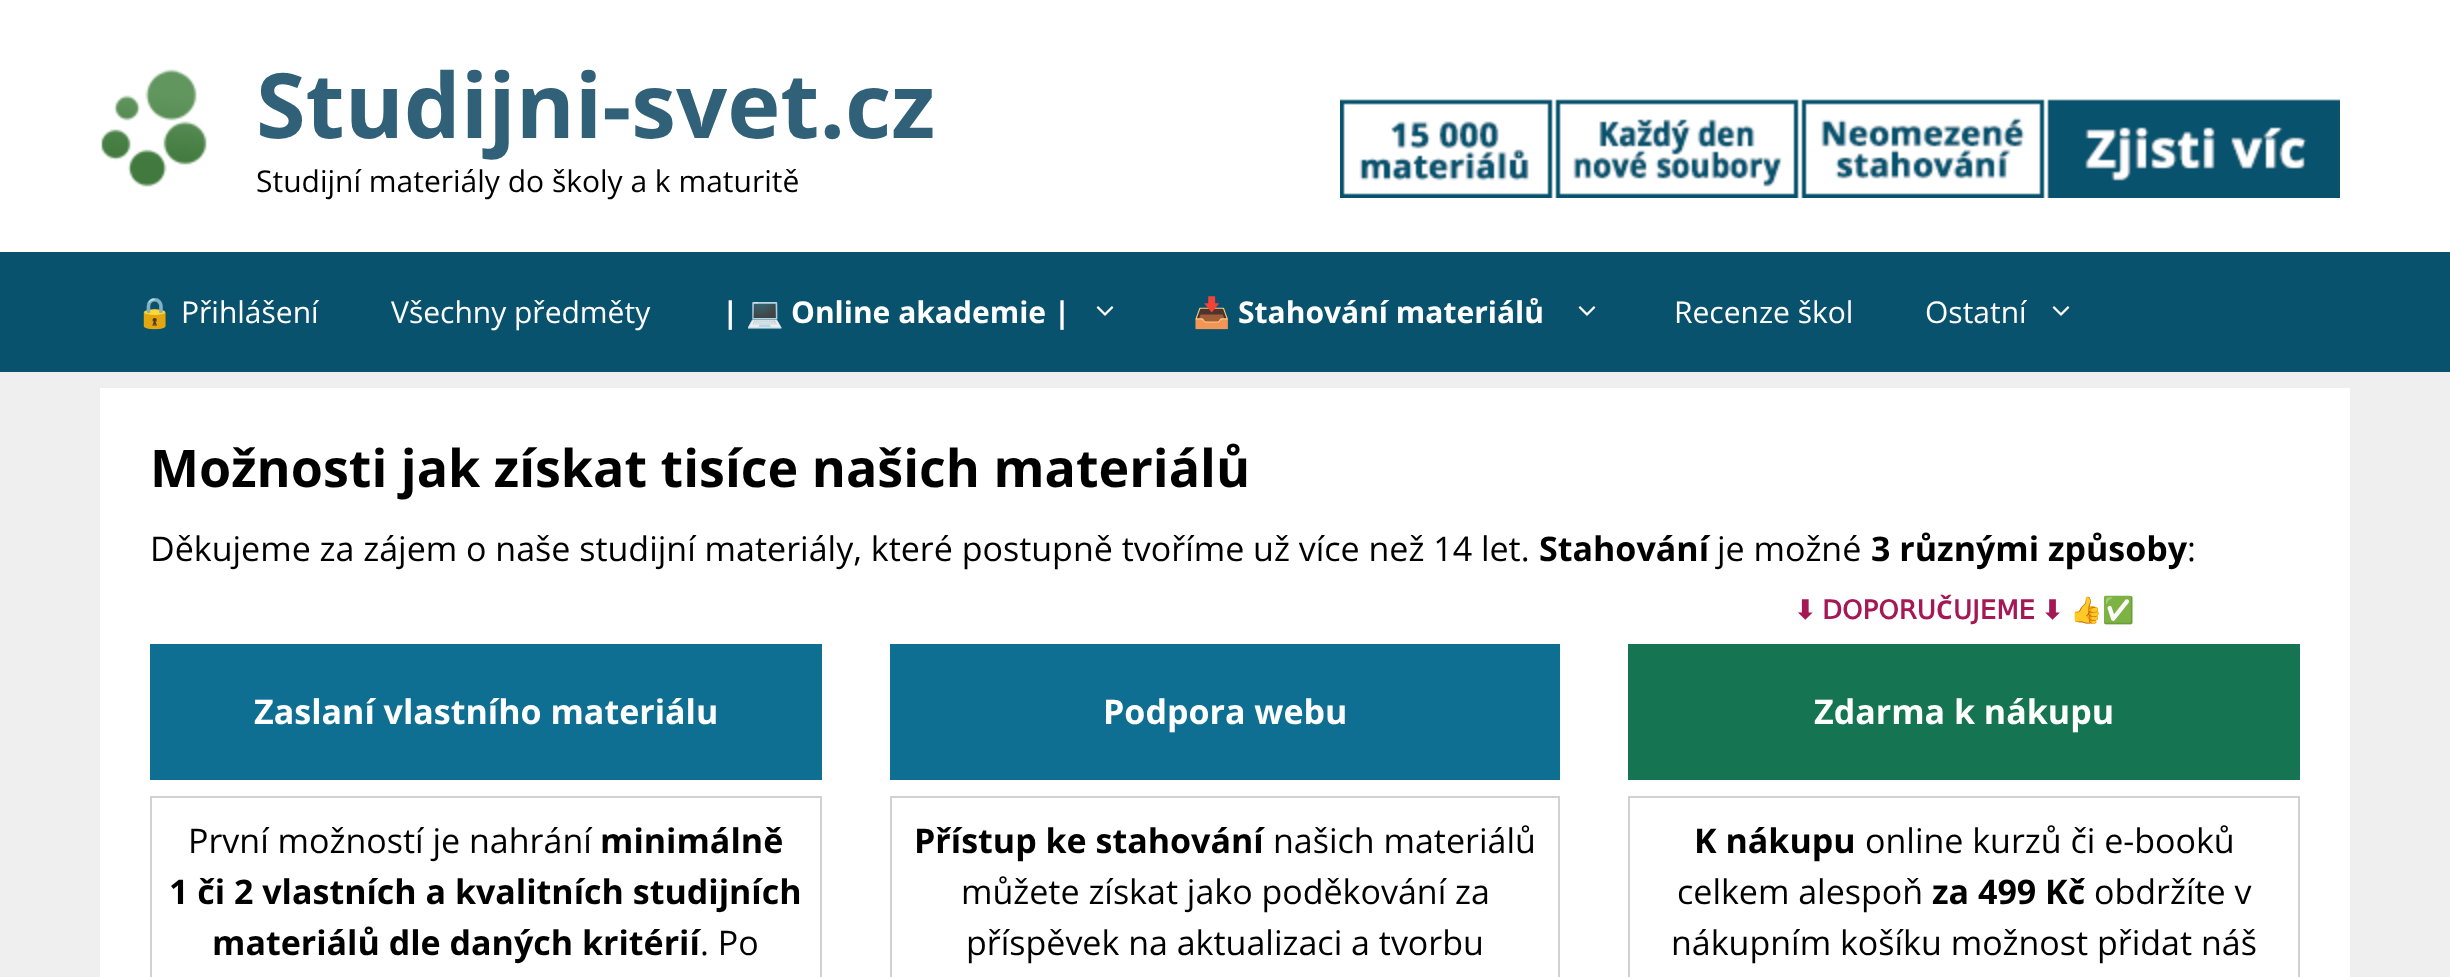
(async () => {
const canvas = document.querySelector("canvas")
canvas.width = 2450
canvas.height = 977
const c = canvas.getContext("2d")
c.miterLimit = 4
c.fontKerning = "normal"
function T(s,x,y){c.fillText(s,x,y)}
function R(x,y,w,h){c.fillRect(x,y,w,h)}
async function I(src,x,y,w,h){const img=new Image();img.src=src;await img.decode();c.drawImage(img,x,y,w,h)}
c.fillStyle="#efefef"
R(0,0,2450,977)
c.fillStyle="#fff"
R(0,0,2450,252)
await I("1.png",101,69,106,118)
c.font="bold 90px Open Sans"
c.fillStyle="#306179"
T("Studijni-svet.cz",256,138)
c.font="30px Open Sans"
c.fillStyle="#000"
T("Studijní materiály do školy a k maturitě",256,192)
await I("2.png",1340,99,1000,99)
c.fillStyle="#08526d"
R(0,252,2450,120)
c.font="30px Noto Color Emoji"
c.fillStyle="#fff"
T("🔒",136,323)
c.font="30px Open Sans"
T("Přihlášení",181,323)
T("Všechny předměty",391,323)
c.font="bold 30px Open Sans"
T("|",722,323)
c.font="bold 30px Noto Color Emoji"
T("💻",746,323)
c.font="bold 30px Open Sans"
T("Online akademie |",791,323)
await I("3.png",1096,306,18,10)
c.font="bold 30px Noto Color Emoji"
T("📥",1193,323)
c.font="bold 30px Open Sans"
T("Stahování materiálů",1238,323)
await I("3.png",1578,306,18,10)
c.font="30px Open Sans"
T("Recenze škol",1674,323)
T("Ostatní",1925,323)
await I("3.png",2052,306,18,10)
R(100,388,2250,589)
c.font="bold 52px Open Sans"
c.fillStyle="#000"
T("Možnosti jak získat tisíce našich materiálů",150,487)
c.font="34px Open Sans"
T("Děkujeme za zájem o naše studijní materiály, které postupně tvoříme už více než 14 let.",150,561)
c.font="bold 34px Open Sans"
T("Stahování",1539,561)
c.font="34px Open Sans"
T("je možné",1717,561)
c.font="bold 34px Open Sans"
T("3 různými způsoby",1871,561)
c.font="34px Open Sans"
T(":",2187,561)
c.fillStyle="#0e6f92"
R(150,644,672,136)
c.font="bold 34px Open Sans"
c.fillStyle="#fff"
T("Zaslaní vlastního materiálu",254,724)
c.fillStyle="#d1d1d1"
R(150,796,672,2)
R(820,796,2,181)
R(150,796,2,181)
c.font="34px Open Sans"
c.fillStyle="#000"
T("První možností je nahrání",188,853)
c.font="bold 34px Open Sans"
T("minimálně",600,853)
T("1 či 2 vlastních a kvalitních studijních",169,904)
T("materiálů dle daných kritérií",212,955)
c.font="34px Open Sans"
T(". Po",700,955)
c.fillStyle="#0e6f92"
R(890,644,670,136)
c.font="bold 34px Open Sans"
c.fillStyle="#fff"
T("Podpora webu",1103,724)
c.fillStyle="#d1d1d1"
R(890,796,670,2)
R(1558,796,2,181)
R(890,796,2,181)
c.fillStyle="#000"
T("Přístup ke stahování",914,853)
c.font="34px Open Sans"
T("našich materiálů",1273,853)
T("můžete získat jako poděkování za",961,904)
T("příspěvek na aktualizaci a tvorbu",966,955)
c.wordSpacing="-2px"
c.font="bold 26px DejaVu Sans"
c.fillStyle="#a41955"
T("⬇ DOPORU",1794,619)
c.wordSpacing="0px"
c.font="bold 26px Open Sans"
T("Č",1936,619)
c.wordSpacing="-2px"
c.font="bold 26px DejaVu Sans"
T("UJEME ⬇",1953,619)
c.wordSpacing="0px"
c.font="26px Noto Color Emoji"
T("👍✅",2070,619)
c.fillStyle="#157552"
R(1628,644,672,136)
c.font="bold 34px Open Sans"
c.fillStyle="#fff"
T("Zdarma k nákupu",1814,724)
c.fillStyle="#d1d1d1"
R(1628,796,672,2)
R(2298,796,2,181)
R(1628,796,2,181)
c.fillStyle="#000"
T("K nákupu",1694,853)
c.font="34px Open Sans"
T("online kurzů či e-booků",1865,853)
T("celkem alespoň",1677,904)
c.font="bold 34px Open Sans"
T("za 499 Kč",1932,904)
c.font="34px Open Sans"
T("obdržíte v",2094,904)
T("nákupním košíku možnost přidat náš",1671,955)
})()
